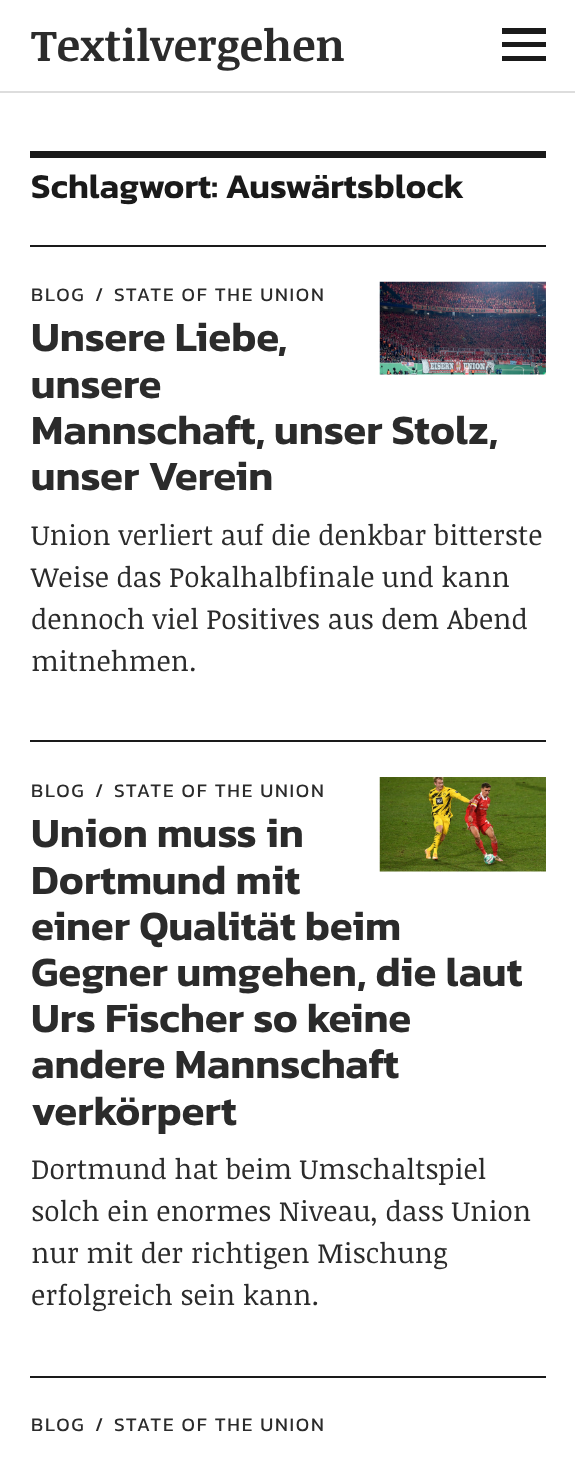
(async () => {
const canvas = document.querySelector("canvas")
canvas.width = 575
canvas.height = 1467
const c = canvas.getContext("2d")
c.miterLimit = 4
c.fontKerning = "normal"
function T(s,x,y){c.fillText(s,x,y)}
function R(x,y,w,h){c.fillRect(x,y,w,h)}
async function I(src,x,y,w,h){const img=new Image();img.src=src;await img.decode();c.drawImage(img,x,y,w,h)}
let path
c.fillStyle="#fff"
R(0,0,575,1467)
c.fillStyle="#ddd"
R(0,91,575,2)
c.font="bold 43.75px Noticia Text"
c.fillStyle="#2b2b2b"
T("Textilvergehen",31,61)
c.fillStyle="#1a1a1a"
path = new Path2D("M502 61v-5h44v5zm0-33h44v6h-44zm0 19v-5h44v5z")
c.fill(path)
R(30,151,516,7)
c.font="600 35px Kanit"
T("Schlagwort: Auswärtsblock",31,198)
R(30,245,516,2)
await I("1.png",379,281,167,94)
c.letterSpacing="1.75px"
c.font="19.25px Kanit"
c.fillStyle="#2b2b2b"
T("BLOG",31,301)
T("/",95,301)
T("STATE OF THE UNION",114,301)
c.letterSpacing="0px"
c.font="600 42px Kanit"
T("Unsere Liebe,",31,351)
T("unsere",31,398)
T("Mannschaft, unser Stolz,",31,444)
T("unser Verein",31,490)
c.font="28px Noticia Text"
T("Union verliert auf die denkbar bitterste",31,545)
T("Weise das Pokalhalbfinale und kann",31,587)
T("dennoch viel Positives aus dem Abend",31,629)
T("mitnehmen.",31,671)
c.fillStyle="#1a1a1a"
R(30,740,516,2)
await I("2.png",379,777,167,95)
c.letterSpacing="1.75px"
c.font="19.25px Kanit"
c.fillStyle="#2b2b2b"
T("BLOG",31,797)
T("/",95,797)
T("STATE OF THE UNION",114,797)
c.letterSpacing="0px"
c.font="600 42px Kanit"
T("Union muss in",31,847)
T("Dortmund mit",31,894)
T("einer Qualität beim",31,940)
T("Gegner umgehen, die laut",31,986)
T("Urs Fischer so keine",31,1032)
T("andere Mannschaft",31,1078)
T("verkörpert",31,1125)
c.font="28px Noticia Text"
T("Dortmund hat beim Umschaltspiel",31,1179)
T("solch ein enormes Niveau, dass Union",31,1221)
T("nur mit der richtigen Mischung",31,1263)
T("erfolgreich sein kann.",31,1305)
c.fillStyle="#1a1a1a"
R(30,1376,516,2)
c.letterSpacing="1.75px"
c.font="19.25px Kanit"
c.fillStyle="#2b2b2b"
T("BLOG",31,1431)
T("/",95,1431)
T("STATE OF THE UNION",114,1431)
})()
